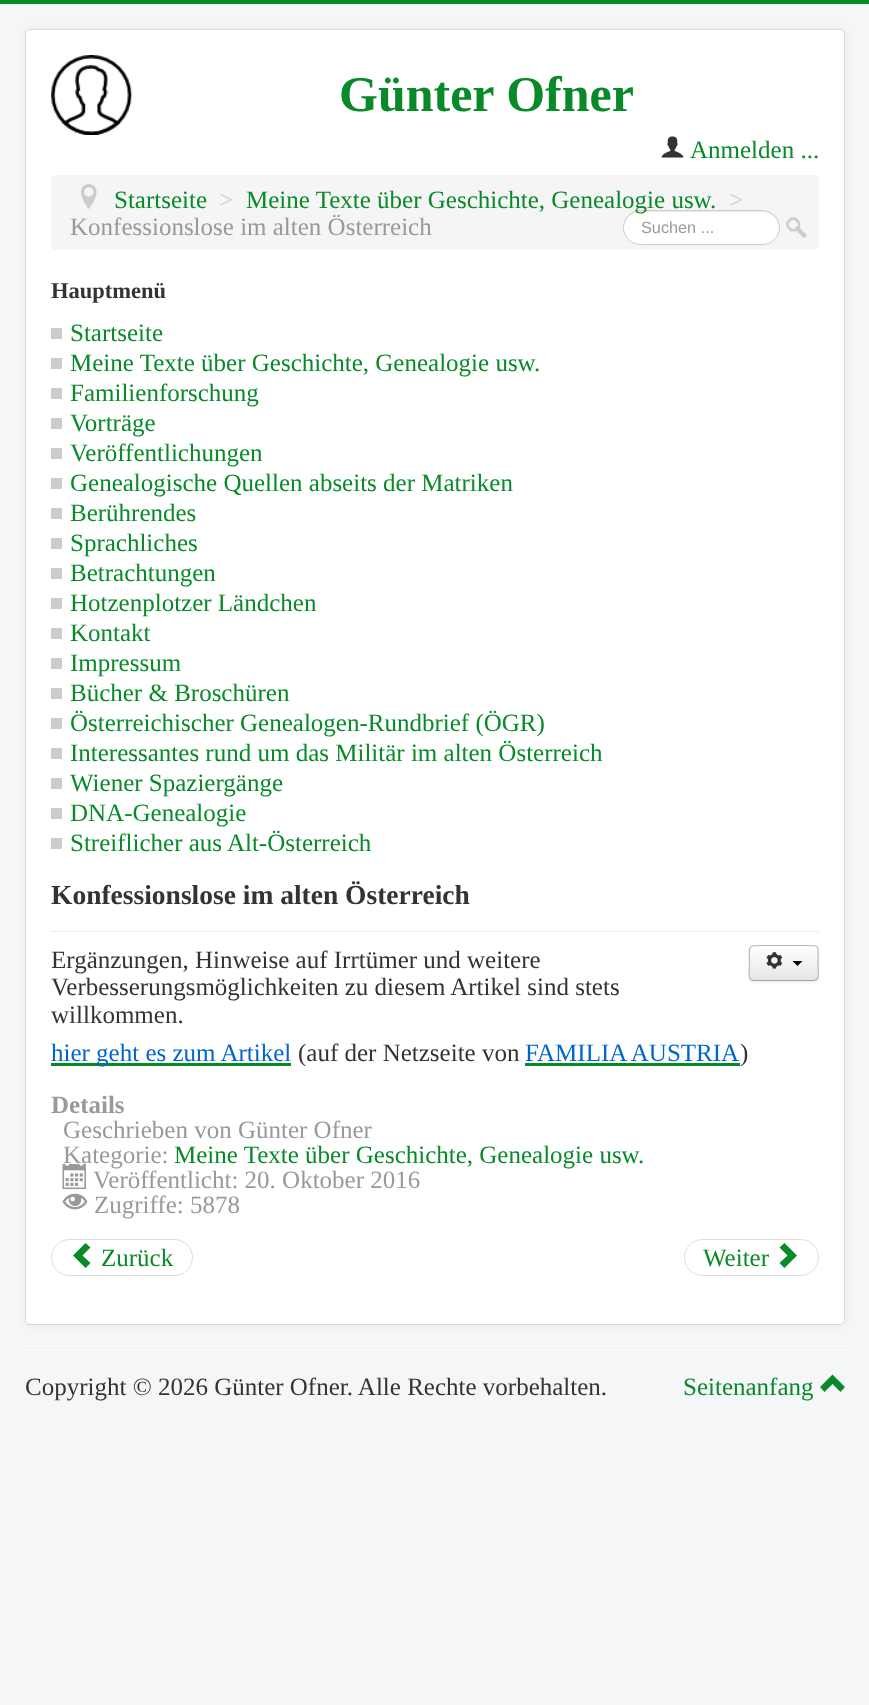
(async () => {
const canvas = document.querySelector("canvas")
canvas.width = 869
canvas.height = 1705
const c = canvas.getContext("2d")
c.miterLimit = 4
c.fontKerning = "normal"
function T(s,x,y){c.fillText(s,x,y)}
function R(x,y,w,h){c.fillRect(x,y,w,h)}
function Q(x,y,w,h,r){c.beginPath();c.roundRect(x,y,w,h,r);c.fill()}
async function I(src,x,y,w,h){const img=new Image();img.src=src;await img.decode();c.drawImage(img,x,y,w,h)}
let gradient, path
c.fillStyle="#f4f6f7"
R(0,0,869,1705)
c.fillStyle="#088a29"
R(0,0,869,4)
c.fillStyle="#0000000d"
c.filter="blur(4px)"
c.beginPath()
c.roundRect(25,29,820,1296,5)
c.fill()
c.filter="none"
c.fillStyle="#fff"
Q(25,29,820,1296,5)
c.beginPath()
c.roundRect(25.5,29.5,819,1295,4.5)
c.strokeStyle="#00000026"
c.stroke()
await I("1.png",51,55,81,80)
c.font="bold 50px Liberation Serif"
c.fillStyle="#088a29"
T("Günter Ofner",339,111)
await I("2.png",661,136,23,22)
c.font="25px Liberation Serif"
T("Anmelden ...",690,158)
c.fillStyle="#f5f5f5"
Q(51,175,768,75,5)
await I("3.png",81,184,16,25)
c.fillStyle="#088a29"
T("Startseite",114,208)
c.fillStyle="#ccc"
T(">",219,208)
c.fillStyle="#fff"
Q(623,210,157,35,17.5)
c.fillStyle="#ececec"
path = new Path2D("M640 212h122c9 0 17 8 17 16c0-10-7-17-17-17h-122c-9 0-16 7-16 17c0-8 7-16 16-16z")
c.fill(path)
c.beginPath()
c.roundRect(623.5,210.5,156,34,17)
c.strokeStyle="#ccc"
c.stroke()
c.fillStyle="#088a29"
T("Meine Texte über Geschichte, Genealogie usw.",246,208)
c.fillStyle="#ccc"
T(">",729,208)
c.fillStyle="#999"
T("Konfessionslose im alten Österreich",70,235)
c.font="16.25px Liberation Sans"
T("Suchen ...",641,233)
await I("4.png",786,217,21,21)
c.font="bold 22.5px Liberation Serif"
c.fillStyle="#333"
T("Hauptmenü",51,298)
c.fillStyle="#ccc"
R(51,328,11,11)
c.font="25px Liberation Serif"
c.fillStyle="#088a29"
T("Startseite",70,341)
c.fillStyle="#ccc"
R(51,358,11,11)
c.fillStyle="#088a29"
T("Meine Texte über Geschichte, Genealogie usw.",70,371)
c.fillStyle="#ccc"
R(51,388,11,11)
c.fillStyle="#088a29"
T("Familienforschung",70,401)
c.fillStyle="#ccc"
R(51,418,11,11)
c.fillStyle="#088a29"
T("Vorträge",70,431)
c.fillStyle="#ccc"
R(51,448,11,11)
c.fillStyle="#088a29"
T("Veröffentlichungen",70,461)
c.fillStyle="#ccc"
R(51,478,11,11)
c.fillStyle="#088a29"
T("Genealogische Quellen abseits der Matriken",70,491)
c.fillStyle="#ccc"
R(51,508,11,11)
c.fillStyle="#088a29"
T("Berührendes",70,521)
c.fillStyle="#ccc"
R(51,538,11,11)
c.fillStyle="#088a29"
T("Sprachliches",70,551)
c.fillStyle="#ccc"
R(51,568,11,11)
c.fillStyle="#088a29"
T("Betrachtungen",70,581)
c.fillStyle="#ccc"
R(51,598,11,11)
c.fillStyle="#088a29"
T("Hotzenplotzer Ländchen",70,611)
c.fillStyle="#ccc"
R(51,628,11,11)
c.fillStyle="#088a29"
T("Kontakt",70,641)
c.fillStyle="#ccc"
R(51,658,11,11)
c.fillStyle="#088a29"
T("Impressum",70,671)
c.fillStyle="#ccc"
R(51,688,11,11)
c.fillStyle="#088a29"
T("Bücher & Broschüren",70,701)
c.fillStyle="#ccc"
R(51,718,11,11)
c.fillStyle="#088a29"
T("Österreichischer Genealogen-Rundbrief (ÖGR)",70,731)
c.fillStyle="#ccc"
R(51,748,11,11)
c.fillStyle="#088a29"
T("Interessantes rund um das Militär im alten Österreich",70,761)
c.fillStyle="#ccc"
R(51,778,11,11)
c.fillStyle="#088a29"
T("Wiener Spaziergänge",70,791)
c.fillStyle="#ccc"
R(51,808,11,11)
c.fillStyle="#088a29"
T("DNA-Genealogie",70,821)
c.fillStyle="#ccc"
R(51,838,11,11)
c.fillStyle="#088a29"
T("Streiflicher aus Alt-Österreich",70,851)
c.fillStyle="#eee"
R(51,931,768,1)
c.font="bold 27.5px Liberation Serif"
c.fillStyle="#333"
T("Konfessionslose im alten Österreich",51,904)
c.font="25px Liberation Serif"
T("Ergänzungen, Hinweise auf Irrtümer und weitere",51,968)
T("Verbesserungsmöglichkeiten zu diesem Artikel sind stets",51,995)
T("willkommen.",51,1023)
c.fillStyle="#088a29"
R(51,1063,240,3)
c.fillStyle="#06c"
T("hier geht es zum Artikel",51,1061)
c.fillStyle="#333"
T("(auf der Netzseite von",298,1061)
c.fillStyle="#06c"
T("FAMILIA AUSTRIA",525,1061)
c.fillStyle="#088a29"
R(525,1063,215,3)
c.fillStyle="#333"
T(")",740,1061)
c.fillStyle="#0000000d"
c.filter="blur(1px)"
c.beginPath()
c.roundRect(749,946,70,37,5)
c.fill()
c.filter="none"
c.fillStyle="#f5f5f5"
Q(749,945,70,36,5)
c.save()
c.beginPath()
c.roundRect(749,945,70,36,5)
c.clip()
gradient = c.createLinearGradient(784,946,784,980)
gradient.addColorStop(0,"#fff")
gradient.addColorStop(1,"#e6e6e6")
c.fillStyle = gradient
R(749,946,70,34)
c.restore()
c.fillStyle="#fff"
path = new Path2D("M754 948h60c2 0 4 1 4 3c0-7-9-5-14-5h-40c-5 0-14-2-14 5c0-2 2-3 4-3z")
c.fill(path)
path = new Path2D("M817 979.5l-3 1h-60.5l-3-1")
c.strokeStyle="#a2a2a2"
c.lineWidth=1.2
c.stroke(path)
path = new Path2D("M750.5 979.5c-2.5-3-1-13-1-16.5c0-18-3.5-17.5 14.5-17.5h40c17.5 0 14-.5 14 17.5c0 3.5 1.5 13.5-1 16.5")
c.strokeStyle="#bbb"
c.stroke(path)
await I("5.png",766,952,17,17)
c.fillStyle="#000"
path = new Path2D("M792.5 961h10l-5 5z")
c.fill(path)
c.font="bold 25px Liberation Serif"
c.fillStyle="#999"
T("Details",51,1113)
c.font="25px Liberation Serif"
T("Geschrieben von Günter Ofner",63,1138)
T("Kategorie:",63,1163)
c.fillStyle="#088a29"
T("Meine Texte über Geschichte, Genealogie usw.",174,1163)
await I("6.png",62,1164,24,26)
c.fillStyle="#999"
T("Veröffentlicht: 20. Oktober 2016",93,1188)
await I("7.png",62,1193,26,17)
T("Zugriffe: 5878",94,1213)
c.beginPath()
c.roundRect(51.5,1239.5,141,36,18)
c.strokeStyle="#ddd"
c.lineWidth=1
c.stroke()
c.fillStyle="#088a29"
path = new Path2D("M85.5 1268l-12.5-12.5l12.5-12.5l5 4.5l-8 8l8 7.5z")
c.fill(path)
T("Zurück",101,1266)
c.beginPath()
c.roundRect(684.5,1239.5,134,36,18)
c.stroke()
T("Weiter",703,1266)
path = new Path2D("M784.5 1243l12.5 12.5l-12.5 12.5l-5-5l8-7.5l-8-8z")
c.fill(path)
c.fillStyle="#eee"
R(25,1348,820,1)
c.fillStyle="#fff"
R(25,1349,820,1)
c.fillStyle="#333"
T("Copyright © 2026 Günter Ofner. Alle Rechte vorbehalten.",25,1395)
c.fillStyle="#088a29"
T("Seitenanfang",683,1395)
path = new Path2D("M820 1387l12.5-12.5l12.5 12.5l-4.5 5l-8-8l-8 8z")
c.fill(path)
})()
